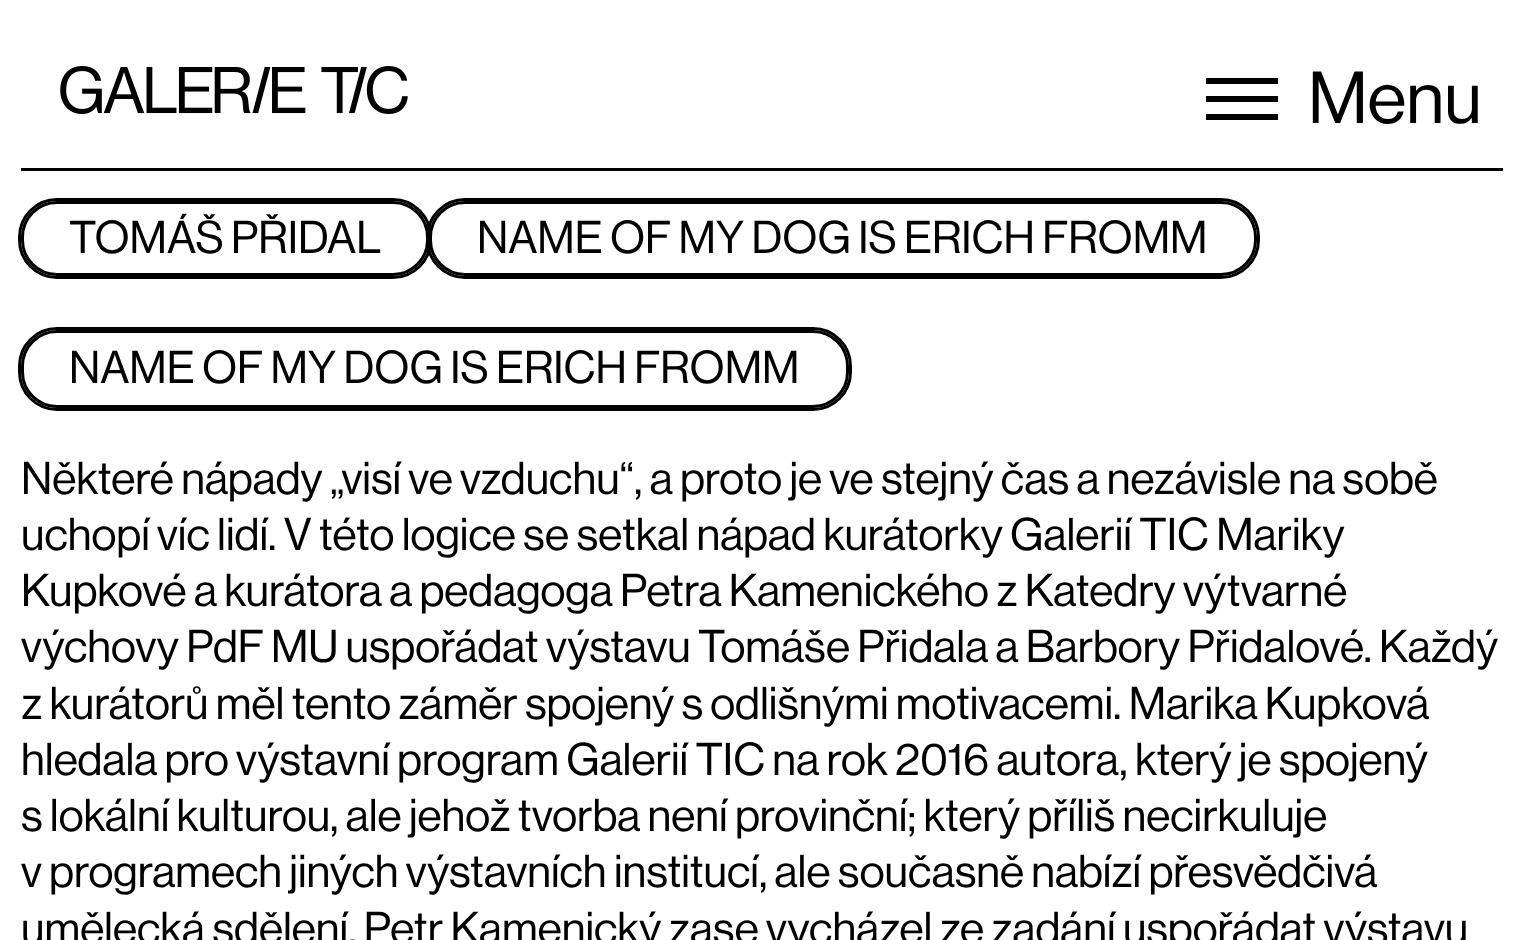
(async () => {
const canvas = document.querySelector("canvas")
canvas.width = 1522
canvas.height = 940
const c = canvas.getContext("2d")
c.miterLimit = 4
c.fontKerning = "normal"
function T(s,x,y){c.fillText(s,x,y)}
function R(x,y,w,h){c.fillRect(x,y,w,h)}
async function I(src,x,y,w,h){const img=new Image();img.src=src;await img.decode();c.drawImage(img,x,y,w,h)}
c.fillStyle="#fff"
R(0,0,1522,940)
await I("1.png",60,66,348,48)
c.fillStyle="#000"
R(1206,78,72,6)
R(1206,96,72,6)
R(1206,114,72,6)
c.font="500 72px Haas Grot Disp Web"
T("Menu",1308,123)
R(21,168,1482,3)
c.beginPath()
c.roundRect(19.5,199.5,411,78,37.5)
c.strokeStyle="#000"
c.lineWidth=3
c.stroke()
c.fillStyle="#fff"
c.beginPath()
c.roundRect(22.5,202.5,405,72,34.5)
c.fill()
c.stroke()
c.font="500 45px Haas Grot Disp Web"
c.fillStyle="#000"
T("TOMÁŠ PŘIDAL",69,253)
c.beginPath()
c.roundRect(427.5,199.5,831,78,37.5)
c.stroke()
c.fillStyle="#fff"
c.beginPath()
c.roundRect(430.5,202.5,825,72,34.5)
c.fill()
c.stroke()
c.fillStyle="#000"
T("NAME OF MY DOG IS ERICH FROMM",477,253)
c.beginPath()
c.roundRect(19.5,328.5,831,81,37.5)
c.stroke()
c.fillStyle="#fff"
c.beginPath()
c.roundRect(22.5,331.5,825,75,34.5)
c.fill()
c.stroke()
c.fillStyle="#000"
T("NAME OF MY DOG IS ERICH FROMM",69,383)
T("Některé nápady „visí ve vzduchu“, a proto je ve stejný čas a nezávisle na sobě",21,494)
T("uchopí víc lidí. V této logice se setkal nápad kurátorky Galerií TIC Mariky",21,550)
T("Kupkové a kurátora a pedagoga Petra Kamenického z Katedry výtvarné",21,606)
T("výchovy PdF MU uspořádat výstavu Tomáše Přidala a Barbory Přidalové. Každý",21,662)
T("z kurátorů měl tento záměr spojený s odlišnými motivacemi. Marika Kupková",21,719)
T("hledala pro výstavní program Galerií TIC na rok 2016 autora, který je spojený",21,775)
T("s lokální kulturou, ale jehož tvorba není provinční; který příliš necirkuluje",21,831)
T("v programech jiných výstavních institucí, ale současně nabízí přesvědčivá",21,887)
T("umělecká sdělení. Petr Kamenický zase vycházel ze zadání uspořádat výstavu",21,944)
})()
